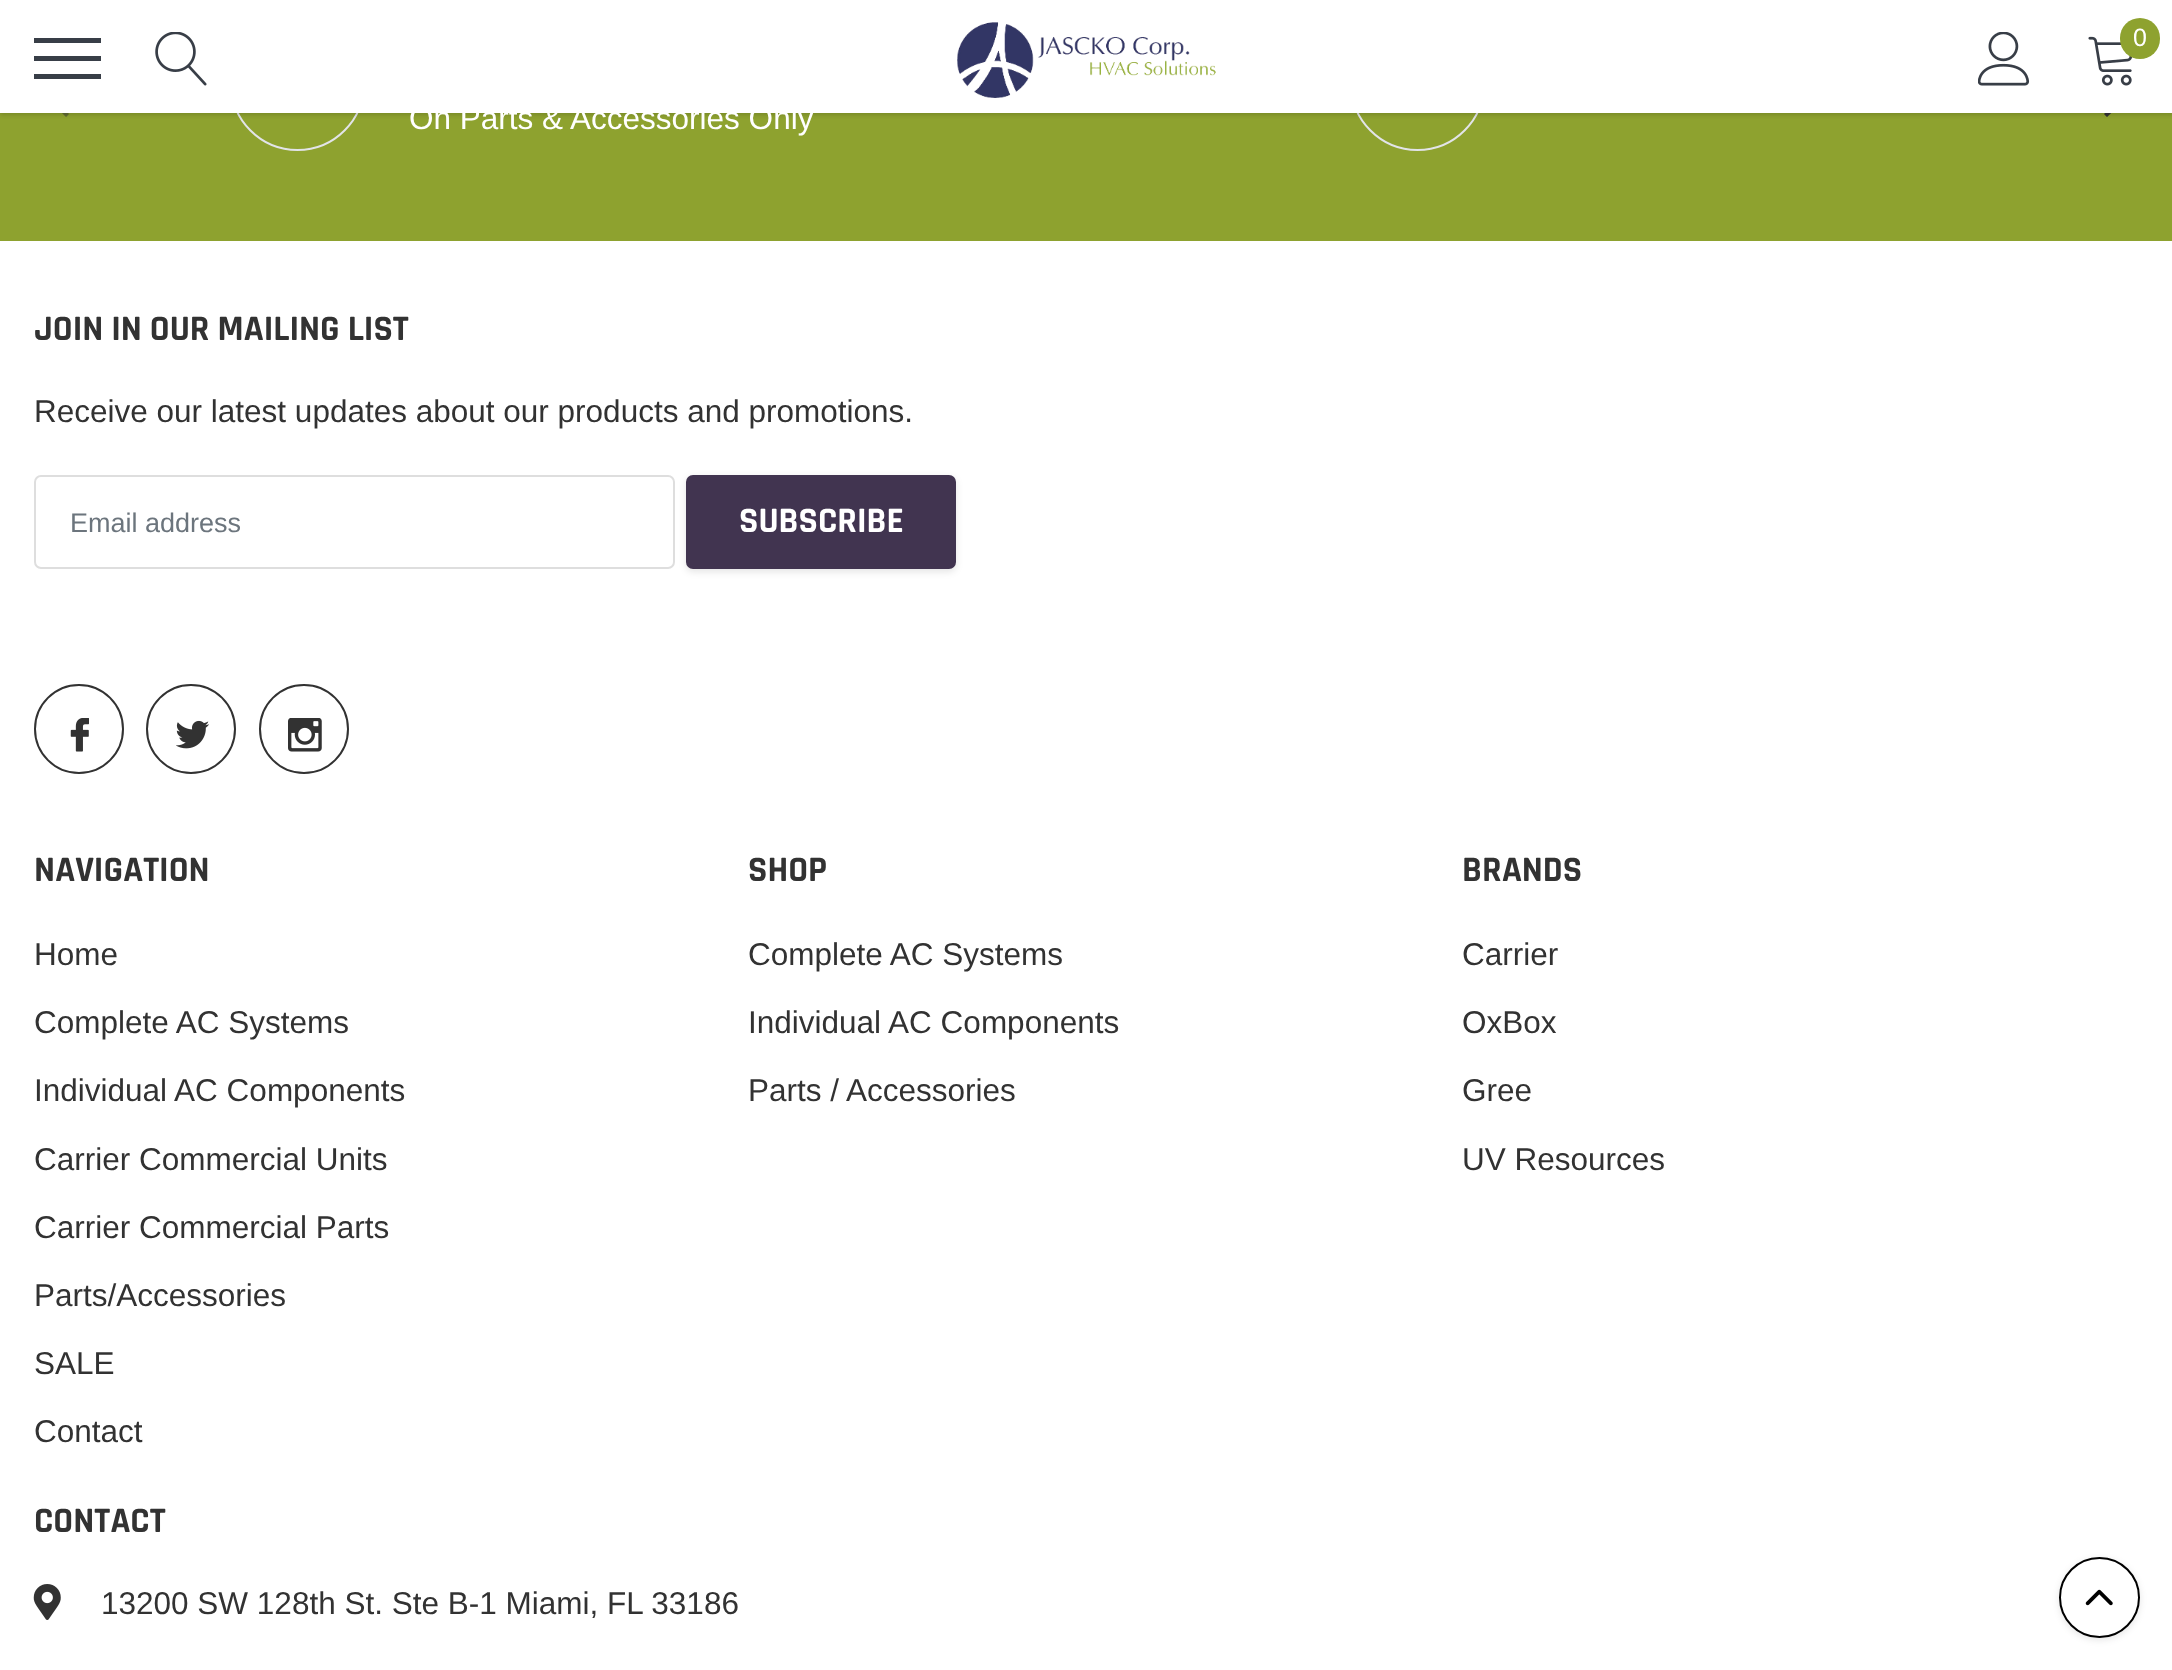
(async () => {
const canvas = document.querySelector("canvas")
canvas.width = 2172
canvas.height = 1670
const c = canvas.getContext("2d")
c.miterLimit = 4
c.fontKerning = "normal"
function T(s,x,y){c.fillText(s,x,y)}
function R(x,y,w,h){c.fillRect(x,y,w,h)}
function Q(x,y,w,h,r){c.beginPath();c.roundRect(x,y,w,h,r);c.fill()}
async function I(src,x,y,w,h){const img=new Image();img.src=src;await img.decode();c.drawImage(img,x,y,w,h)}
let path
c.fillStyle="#fff"
R(0,0,2172,1670)
c.fillStyle="#8ea22f"
R(0,113,2172,128)
c.fillStyle="#606a31"
path = new Path2D("M69 75l-3-3l-23 22l23 23l3-3l-20-20z")
c.fill(path)
path = new Path2D("M69.5 75l-3-3l-23.5 22.5l23.5 22.5l3-3l-20.5-19.5z")
c.strokeStyle="#606a31"
c.lineWidth=0.1
c.stroke(path)
c.fillStyle="#323232"
path = new Path2D("M2107 72l-3 3l20 20l-20 19l3 3l23-22z")
c.fill(path)
path = new Path2D("M2107 72l-3 3l20.5 19.5l-20.5 19.5l3 3l23.5-22.5z")
c.strokeStyle="#323232"
c.stroke(path)
c.beginPath()
c.arc(297.5,83.5,66.5,0,7)
c.strokeStyle="#e2e4e8"
c.lineWidth=2
c.stroke()
c.beginPath()
c.arc(1417.5,83.5,66.5,0,7)
c.stroke()
c.fillStyle="#00000026"
c.filter="blur(2px)"
c.beginPath()
c.rect(0,2,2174,113)
c.fill()
c.filter="none"
c.fillStyle="#fff"
R(0,0,2172,113)
c.fillStyle="#383e47"
R(34,56,67,5)
R(34,38,67,5)
R(34,74,67,5)
await I("1.png",155,32,52,54)
await I("2.png",957,22,259,76)
await I("3.png",1978,32,52,54)
await I("4.png",2088,36,45,50)
c.fillStyle="#8ea22f"
Q(2120,18,40,41,20)
c.font="25px Arimo"
c.fillStyle="#fff"
T("0",2133,46)
c.font="31.5px Arimo"
T("On Parts & Accessories Only",409,129)
c.font="bold 36px Rajdhani"
c.fillStyle="#323232"
T("JOIN IN OUR MAILING LIST",34,340)
c.font="31.5px Arimo"
T("Receive our latest updates about our products and promotions.",34,422)
c.fillStyle="#0000001a"
c.filter="blur(3.5px)"
c.beginPath()
c.roundRect(686,477,270,95,7)
c.fill()
c.filter="none"
c.beginPath()
c.roundRect(35,476,639,92,6)
c.strokeStyle="#dedede"
c.stroke()
c.font="27px Arimo"
c.fillStyle="#6c757d"
T("Email address",70,532)
c.fillStyle="#413450"
c.beginPath()
c.roundRect(687,476,268,92,6)
c.fill()
c.strokeStyle="#413450"
c.stroke()
c.font="bold 36px Rajdhani"
c.fillStyle="#fff"
T("SUBSCRIBE",739,532)
c.beginPath()
c.arc(79,729,44,0,7)
c.strokeStyle="#323232"
c.stroke()
await I("5.png",70,718,19,34)
c.beginPath()
c.arc(191,729,44,0,7)
c.stroke()
await I("6.png",176,720,33,29)
c.beginPath()
c.arc(304,729,44,0,7)
c.stroke()
await I("7.png",288,718,34,34)
c.fillStyle="#323232"
T("NAVIGATION",34,881)
c.font="31.5px Arimo"
T("Home",34,965)
T("Complete AC Systems",34,1033)
T("Individual AC Components",34,1101)
T("Carrier Commercial Units",34,1170)
T("Carrier Commercial Parts",34,1238)
T("Parts/Accessories",34,1306)
T("SALE",34,1374)
T("Contact",34,1442)
c.font="bold 36px Rajdhani"
T("SHOP",748,881)
c.font="31.5px Arimo"
T("Complete AC Systems",748,965)
T("Individual AC Components",748,1033)
T("Parts / Accessories",748,1101)
c.font="bold 36px Rajdhani"
T("BRANDS",1462,881)
c.font="31.5px Arimo"
T("Carrier",1462,965)
T("OxBox",1462,1033)
T("Gree",1462,1101)
T("UV Resources",1462,1170)
c.font="bold 36px Rajdhani"
T("CONTACT",34,1532)
await I("8.png",33,1584,28,36)
c.font="31.5px Arimo"
T("13200 SW 128th St. Ste B-1 Miami, FL 33186",101,1614)
c.fillStyle="#0000001a"
c.filter="blur(3.5px)"
c.beginPath()
c.roundRect(2059,1559,81,81,40.5)
c.fill()
c.filter="none"
c.fillStyle="#fff"
c.beginPath()
c.arc(2099.5,1597.5,39.5,0,7)
c.fill()
c.strokeStyle="#000"
c.stroke()
await I("9.png",2085,1589,28,17)
})()
